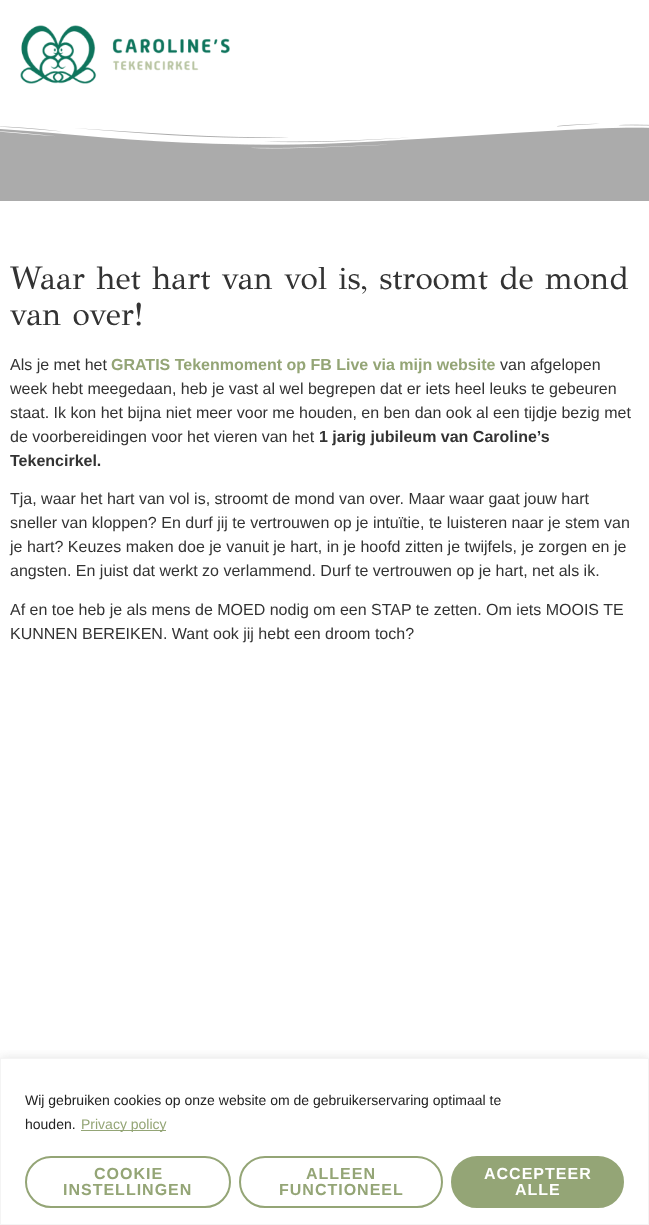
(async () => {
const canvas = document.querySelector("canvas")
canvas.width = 649
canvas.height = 1225
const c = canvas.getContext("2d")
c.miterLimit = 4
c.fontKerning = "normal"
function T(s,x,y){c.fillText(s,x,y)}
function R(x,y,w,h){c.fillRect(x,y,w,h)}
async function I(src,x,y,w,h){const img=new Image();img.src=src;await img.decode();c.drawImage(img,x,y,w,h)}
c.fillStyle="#fff"
R(0,0,649,1225)
await I("1.png",20,25,210,59)
c.fillStyle="#ababab"
R(0,123,649,78)
await I("2.png",0,120,649,29)
c.font="32px GFS Didot"
c.fillStyle="#333"
T("Waar het hart van vol is, stroomt de mond",10,289)
T("van over!",10,325)
c.font="16px Liberation Sans"
T("Als je met het",10,370)
c.font="bold 16px Liberation Sans"
c.fillStyle="#94a576"
T("GRATIS Tekenmoment op FB Live via mijn website",111,370)
c.font="16px Liberation Sans"
c.fillStyle="#333"
T("van afgelopen",500,370)
T("week hebt meegedaan, heb je vast al wel begrepen dat er iets heel leuks te gebeuren",10,394)
T("staat. Ik kon het bijna niet meer voor me houden, en ben dan ook al een tijdje bezig met",10,418)
T("de voorbereidingen voor het vieren van het",10,442)
c.font="bold 16px Liberation Sans"
T("1 jarig jubileum van Caroline’s",319,442)
T("Tekencirkel.",10,466)
c.font="16px Liberation Sans"
T("Tja, waar het hart van vol is, stroomt de mond van over. Maar waar gaat jouw hart",10,504)
T("sneller van kloppen? En durf jij te vertrouwen op je intuïtie, te luisteren naar je stem van",10,528)
T("je hart? Keuzes maken doe je vanuit je hart, in je hoofd zitten je twijfels, je zorgen en je",10,552)
T("angsten. En juist dat werkt zo verlammend. Durf te vertrouwen op je hart, net als ik.",10,576)
T("Af en toe heb je als mens de MOED nodig om een STAP te zetten. Om iets MOOIS TE",10,615)
T("KUNNEN BEREIKEN. Want ook jij hebt een droom toch?",10,639)
c.save()
c.beginPath()
c.rect(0,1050,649,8)
c.clip()
c.fillStyle="#acabab4d"
c.filter="blur(5px)"
c.beginPath()
c.rect(0,1057,649,167)
c.fill()
c.filter="none"
c.restore()
c.strokeStyle="#f4f4f4"
c.strokeRect(.5,1058.5,648,166)
c.font="14px Liberation Sans"
c.fillStyle="#212121"
T("Wij gebruiken cookies op onze website om de gebruikerservaring optimaal te",25,1105)
T("houden.",25,1129)
c.fillStyle="#94a576"
R(81,1130,85,1)
T("Privacy policy",81,1129)
c.beginPath()
c.roundRect(26,1157,204,50,25)
c.strokeStyle="#94a576"
c.lineWidth=2
c.stroke()
c.letterSpacing="1px"
c.font="bold 16px Liberation Sans"
T("COOKIE",94,1179)
T("INSTELLINGEN",63,1195)
c.beginPath()
c.roundRect(240,1157,202,50,25)
c.stroke()
T("ALLEEN",306,1179)
T("FUNCTIONEEL",279,1195)
c.beginPath()
c.roundRect(452,1157,171,50,25)
c.fill()
c.stroke()
c.fillStyle="#fff"
T("ACCEPTEER",484,1179)
T("ALLE",515,1195)
})()
